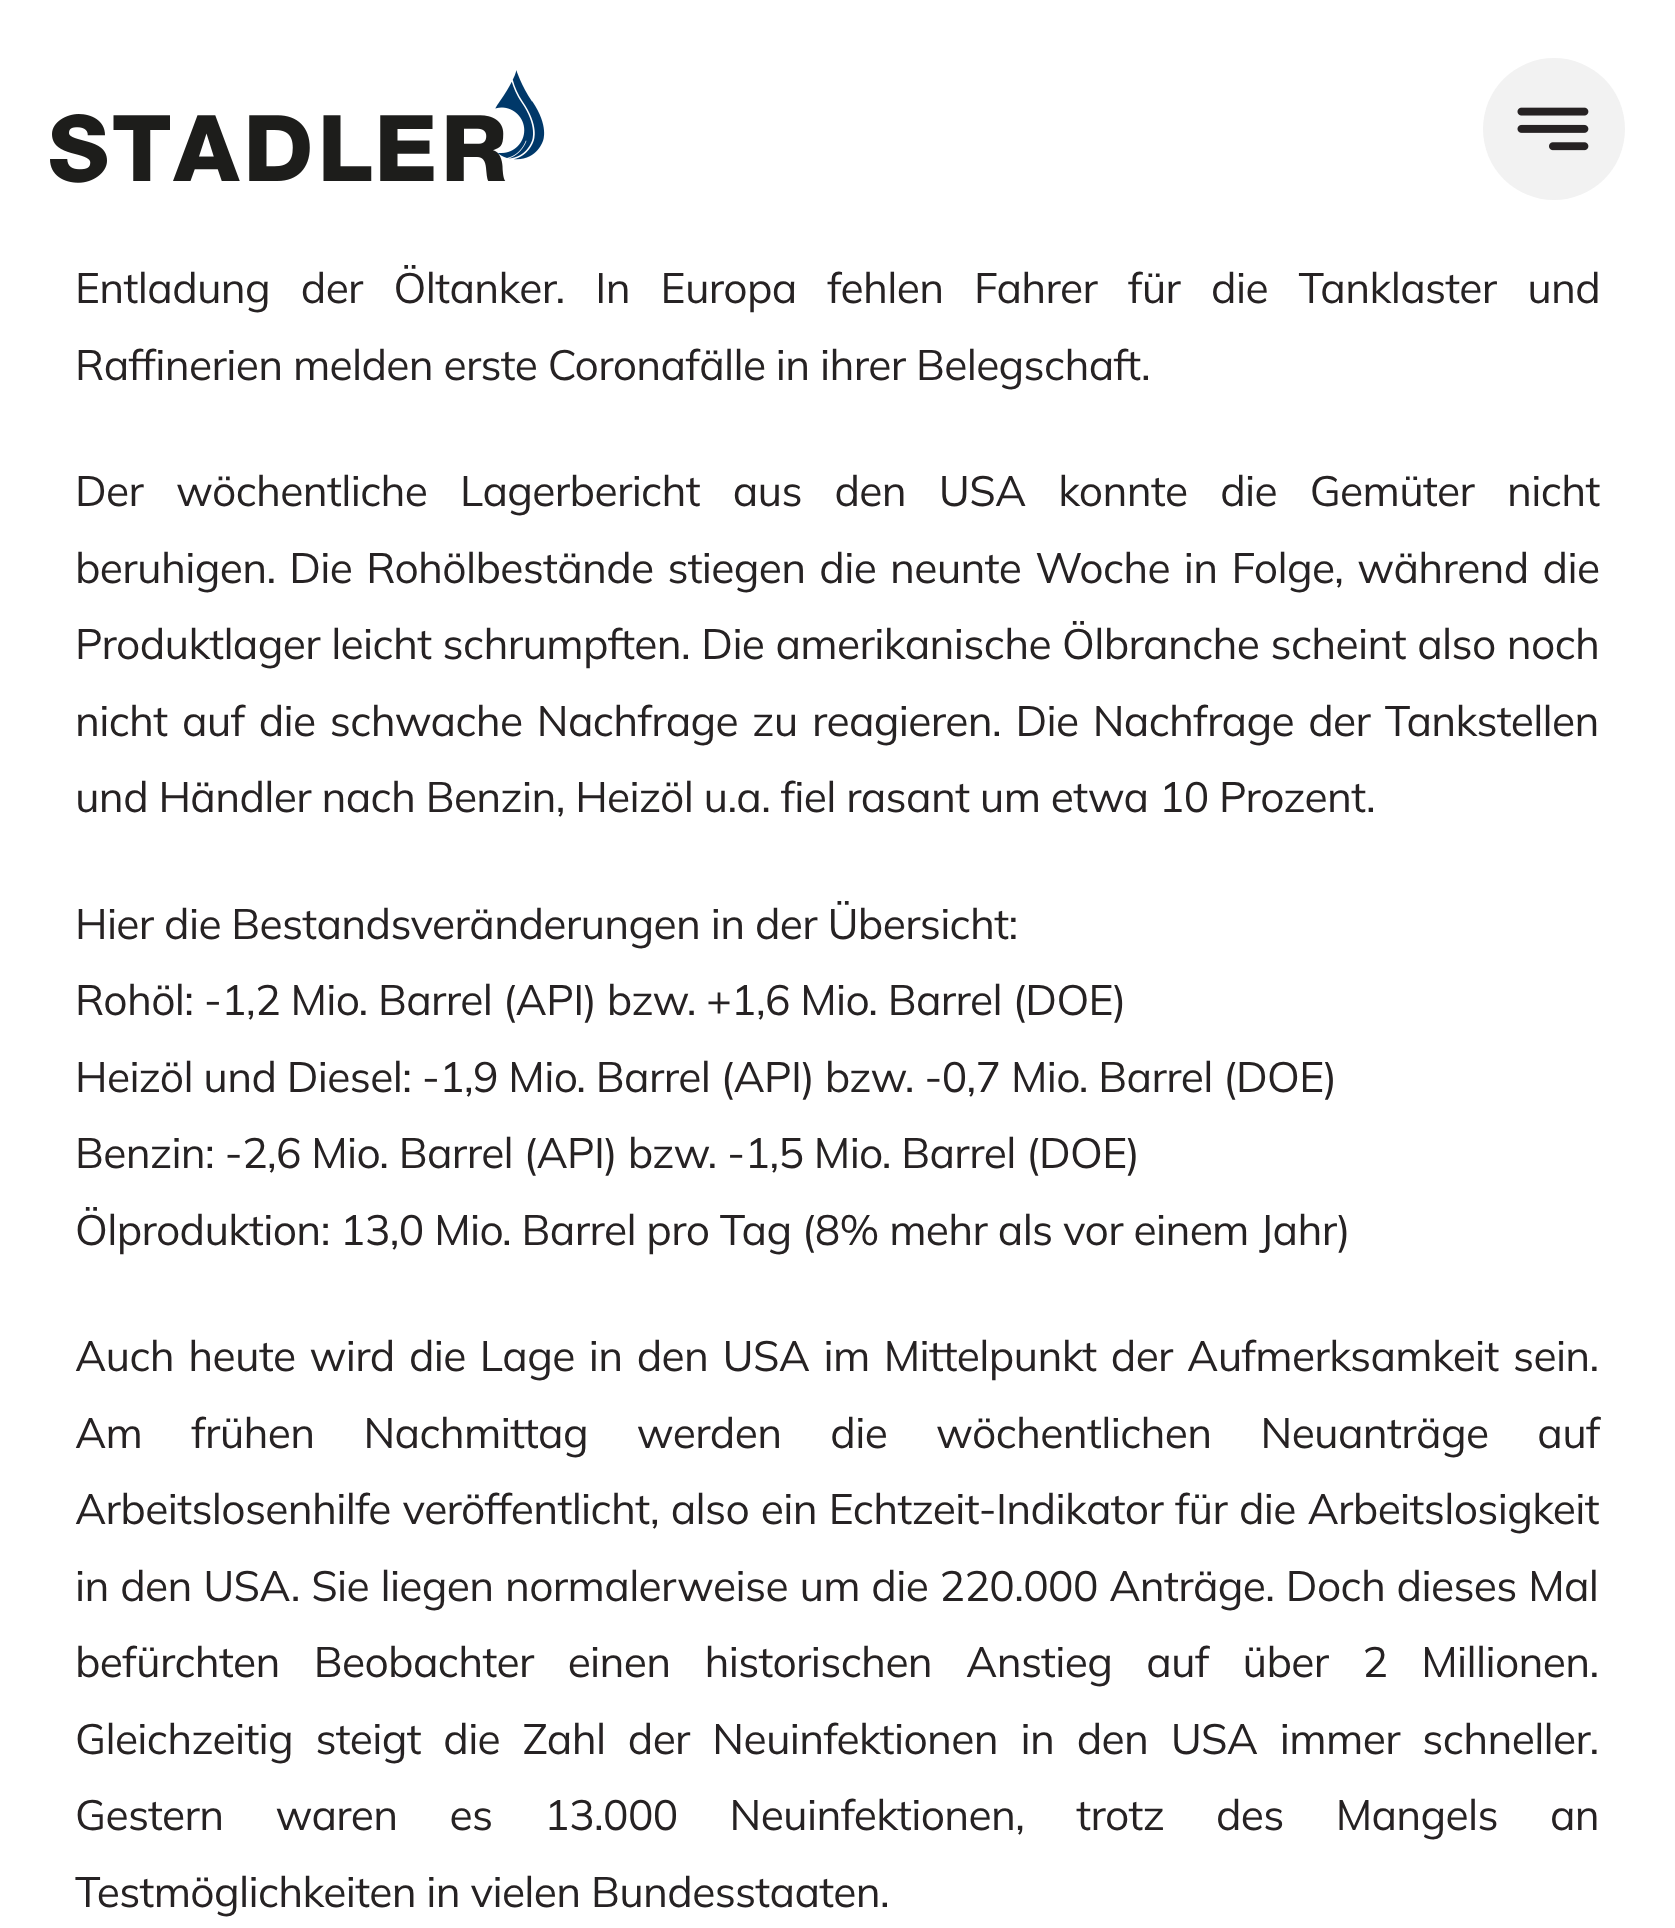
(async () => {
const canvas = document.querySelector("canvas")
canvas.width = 1675
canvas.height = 1928
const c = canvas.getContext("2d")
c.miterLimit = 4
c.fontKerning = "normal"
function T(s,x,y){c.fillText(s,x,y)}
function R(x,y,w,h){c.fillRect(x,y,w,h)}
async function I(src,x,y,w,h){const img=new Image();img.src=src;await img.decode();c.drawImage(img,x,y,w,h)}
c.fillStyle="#fff"
R(0,0,1675,1928)
await I("1.png",50,70,495,113)
c.fillStyle="#f2f2f2"
c.beginPath()
c.arc(1554,129,71,0,7)
c.fill()
await I("2.png",1517,107,72,44)
c.letterSpacing="-0.65px"
c.wordSpacing="20.25px"
c.font="42.5px Mulish"
c.fillStyle="#262223"
T("Entladung der Öltanker. In Europa fehlen Fahrer für die Tanklaster und",75,303)
c.wordSpacing="0px"
T("Raffinerien melden erste Coronafälle in ihrer Belegschaft.",75,380)
c.wordSpacing="22.25px"
T("Der wöchentliche Lagerbericht aus den USA konnte die Gemüter nicht",75,506)
c.wordSpacing="3.4px"
T("beruhigen. Die Rohölbestände stiegen die neunte Woche in Folge, während die",75,583)
c.wordSpacing="0.75px"
T("Produktlager leicht schrumpften. Die amerikanische Ölbranche scheint also noch",75,659)
c.wordSpacing="3.9px"
T("nicht auf die schwache Nachfrage zu reagieren. Die Nachfrage der Tankstellen",75,736)
c.wordSpacing="0px"
T("und Händler nach Benzin, Heizöl u.a. fiel rasant um etwa 10 Prozent.",75,812)
T("Hier die Bestandsveränderungen in der Übersicht:",75,939)
T("Rohöl: -1,2 Mio. Barrel (API) bzw. +1,6 Mio. Barrel (DOE)",75,1015)
T("Heizöl und Diesel: -1,9 Mio. Barrel (API) bzw. -0,7 Mio. Barrel (DOE)",75,1092)
T("Benzin: -2,6 Mio. Barrel (API) bzw. -1,5 Mio. Barrel (DOE)",75,1168)
T("Ölproduktion: 13,0 Mio. Barrel pro Tag (8% mehr als vor einem Jahr)",75,1245)
c.wordSpacing="3.75px"
T("Auch heute wird die Lage in den USA im Mittelpunkt der Aufmerksamkeit sein.",75,1371)
c.wordSpacing="38.5px"
T("Am frühen Nachmittag werden die wöchentlichen Neuanträge auf",75,1448)
c.wordSpacing="1.25px"
T("Arbeitslosenhilfe veröffentlicht, also ein Echtzeit-Indikator für die Arbeitslosigkeit",75,1524)
c.wordSpacing="1px"
T("in den USA. Sie liegen normalerweise um die 220.000 Anträge. Doch dieses Mal",75,1601)
c.wordSpacing="23.5px"
T("befürchten Beobachter einen historischen Anstieg auf über 2 Millionen.",75,1677)
c.wordSpacing="12px"
T("Gleichzeitig steigt die Zahl der Neuinfektionen in den USA immer schneller.",75,1754)
c.wordSpacing="41.5px"
T("Gestern waren es 13.000 Neuinfektionen, trotz des Mangels an",75,1830)
c.wordSpacing="0px"
T("Testmöglichkeiten in vielen Bundesstaaten.",75,1907)
})()
